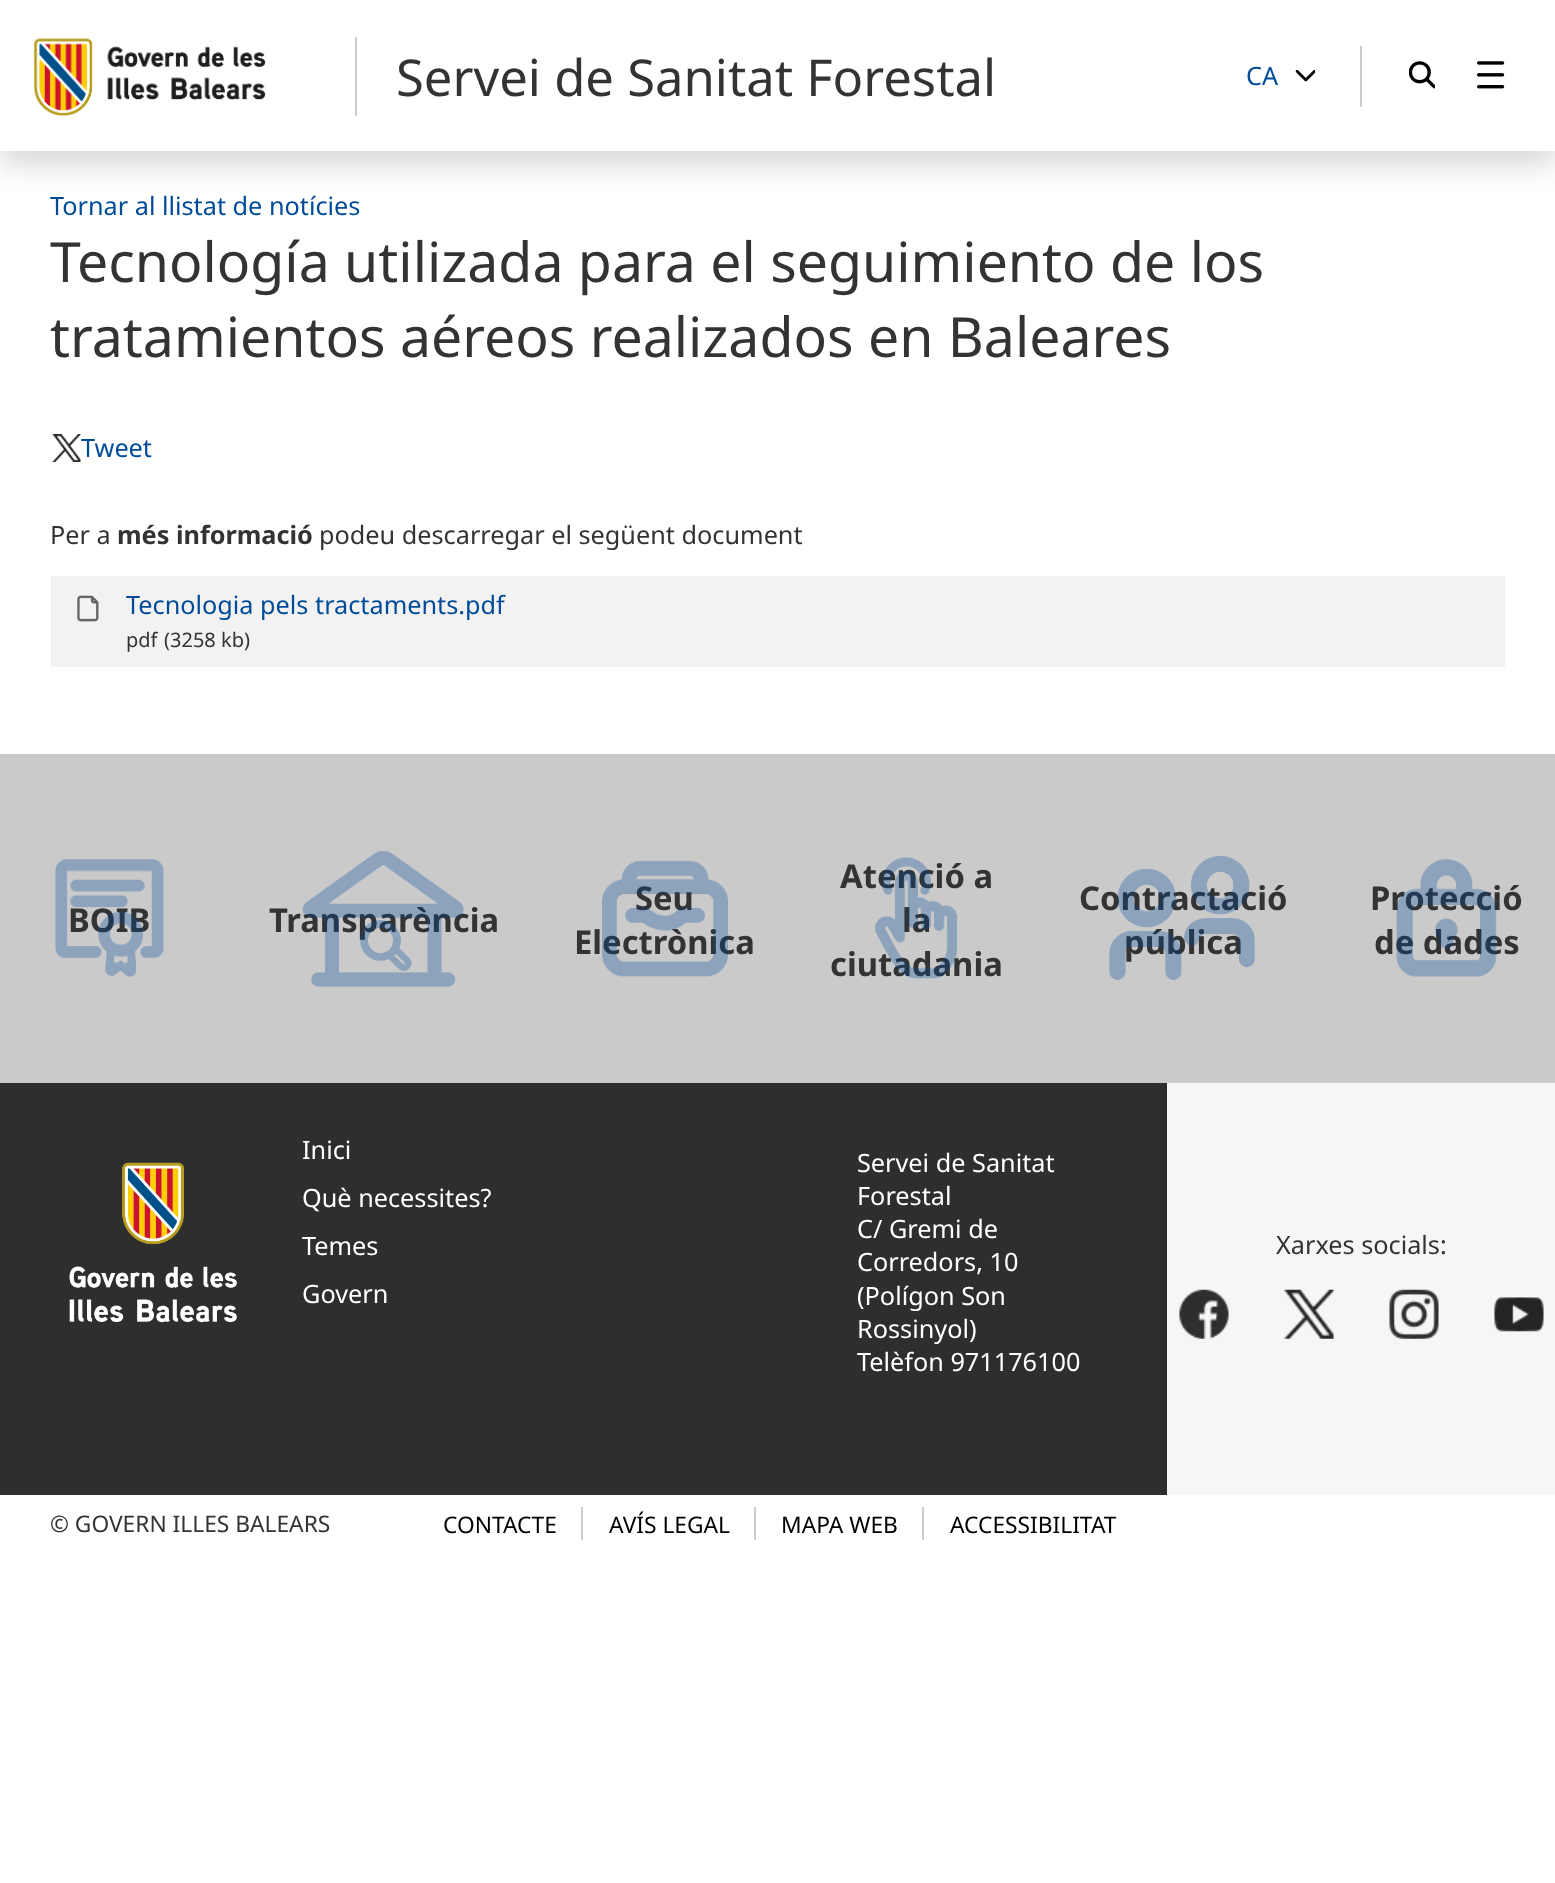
(async () => {
const canvas = document.querySelector("canvas")
canvas.width = 1555
canvas.height = 1883
const c = canvas.getContext("2d")
c.miterLimit = 4
c.fontKerning = "normal"
function T(s,x,y){c.fillText(s,x,y)}
function R(x,y,w,h){c.fillRect(x,y,w,h)}
async function I(src,x,y,w,h){const img=new Image();img.src=src;await img.decode();c.drawImage(img,x,y,w,h)}
c.fillStyle="#fff"
R(0,0,1555,1883)
c.fillStyle="#00000026"
c.filter="blur(14px)"
c.beginPath()
c.rect(0,14,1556,151)
c.fill()
c.filter="none"
c.fillStyle="#fff"
R(0,0,1555,151)
c.fillStyle="#ccc"
R(355,37,2,79)
await I("1.png",33,38,233,78)
c.font="50.75px Noto Sans"
c.fillStyle="#333"
T("Servei de Sanitat Forestal",396,96)
c.fillStyle="#ccc"
R(1360,46,2,61)
c.font="25.25px Noto Sans"
c.fillStyle="#004b99"
T("CA",1246,85)
await I("2.png",1295,69,21,13)
await I("3.png",1409,61,26,28)
await I("4.png",1477,61,28,28)
T("Tornar al llistat de notícies",50,215)
c.font="55.4px Noto Sans"
c.fillStyle="#333"
T("Tecnología utilizada para el seguimiento de los",50,282)
T("tratamientos aéreos realizados en Baleares",50,357)
await I("5.png",52,434,29,28)
c.font="25.25px Noto Sans"
c.fillStyle="#004b99"
T("Tweet",81,457)
c.fillStyle="#333"
T("Per a",50,544)
c.font="bold 25.25px Noto Sans"
T("més informació",117,544)
c.font="25.25px Noto Sans"
T("podeu descarregar el següent document",319,544)
c.fillStyle="#f2f2f2"
R(51,576,1454,91)
await I("6.png",77,595,22,27)
c.fillStyle="#004b99"
T("Tecnologia pels tractaments.pdf",126,614)
c.font="20px Noto Sans"
c.fillStyle="#333"
T("pdf",126,647)
T("(3258 kb)",164,647)
c.fillStyle="#cacaca"
R(0,754,1555,329)
c.font="bold 32.75px Noto Sans"
c.fillStyle="#333"
T("BOIB",68,932)
await I("7.png",55,859,109,118)
T("Transparència",269,932)
await I("8.png",302,851,162,136)
T("Seu",635,910)
T("Electrònica",574,954)
await I("9.png",602,860,126,117)
T("Atenció a",840,888)
T("la",902,932)
T("ciutadania",830,976)
await I("10.png",875,857,83,122)
T("Contractació",1079,910)
T("pública",1124,954)
await I("11.png",1109,856,146,124)
T("Protecció",1370,910)
T("de dades",1374,954)
await I("12.png",1396,859,101,118)
c.fillStyle="#2e2e2e"
R(0,1083,1167,412)
await I("13.png",69,1162,168,161)
c.font="25.25px Noto Sans"
c.fillStyle="#fff"
T("Inici",302,1159)
T("Què necessites?",302,1207)
T("Temes",302,1255)
T("Govern",302,1303)
T("Servei de Sanitat",857,1172)
T("Forestal",857,1205)
T("C/ Gremi de",857,1238)
T("Corredors, 10",857,1271)
T("(Polígon Son",857,1305)
T("Rossinyol)",857,1338)
T("Telèfon 971176100",857,1371)
c.fillStyle="#f6f6f6"
R(1167,1083,388,412)
c.fillStyle="#333"
T("Xarxes socials:",1276,1254)
await I("14.png",1179,1289,50,50)
await I("15.png",1284,1289,50,50)
await I("16.png",1389,1289,50,50)
await I("17.png",1494,1297,50,35)
c.font="22.75px Noto Sans"
T("© GOVERN ILLES BALEARS",50,1532)
c.fillStyle="#ccc"
R(581,1507,2,33)
c.fillStyle="#000"
T("CONTACTE",443,1533)
c.fillStyle="#ccc"
R(754,1507,2,33)
c.fillStyle="#000"
T("AVÍS LEGAL",609,1533)
c.fillStyle="#ccc"
R(922,1507,2,33)
c.fillStyle="#000"
T("MAPA WEB",781,1533)
T("ACCESSIBILITAT",950,1533)
})()
